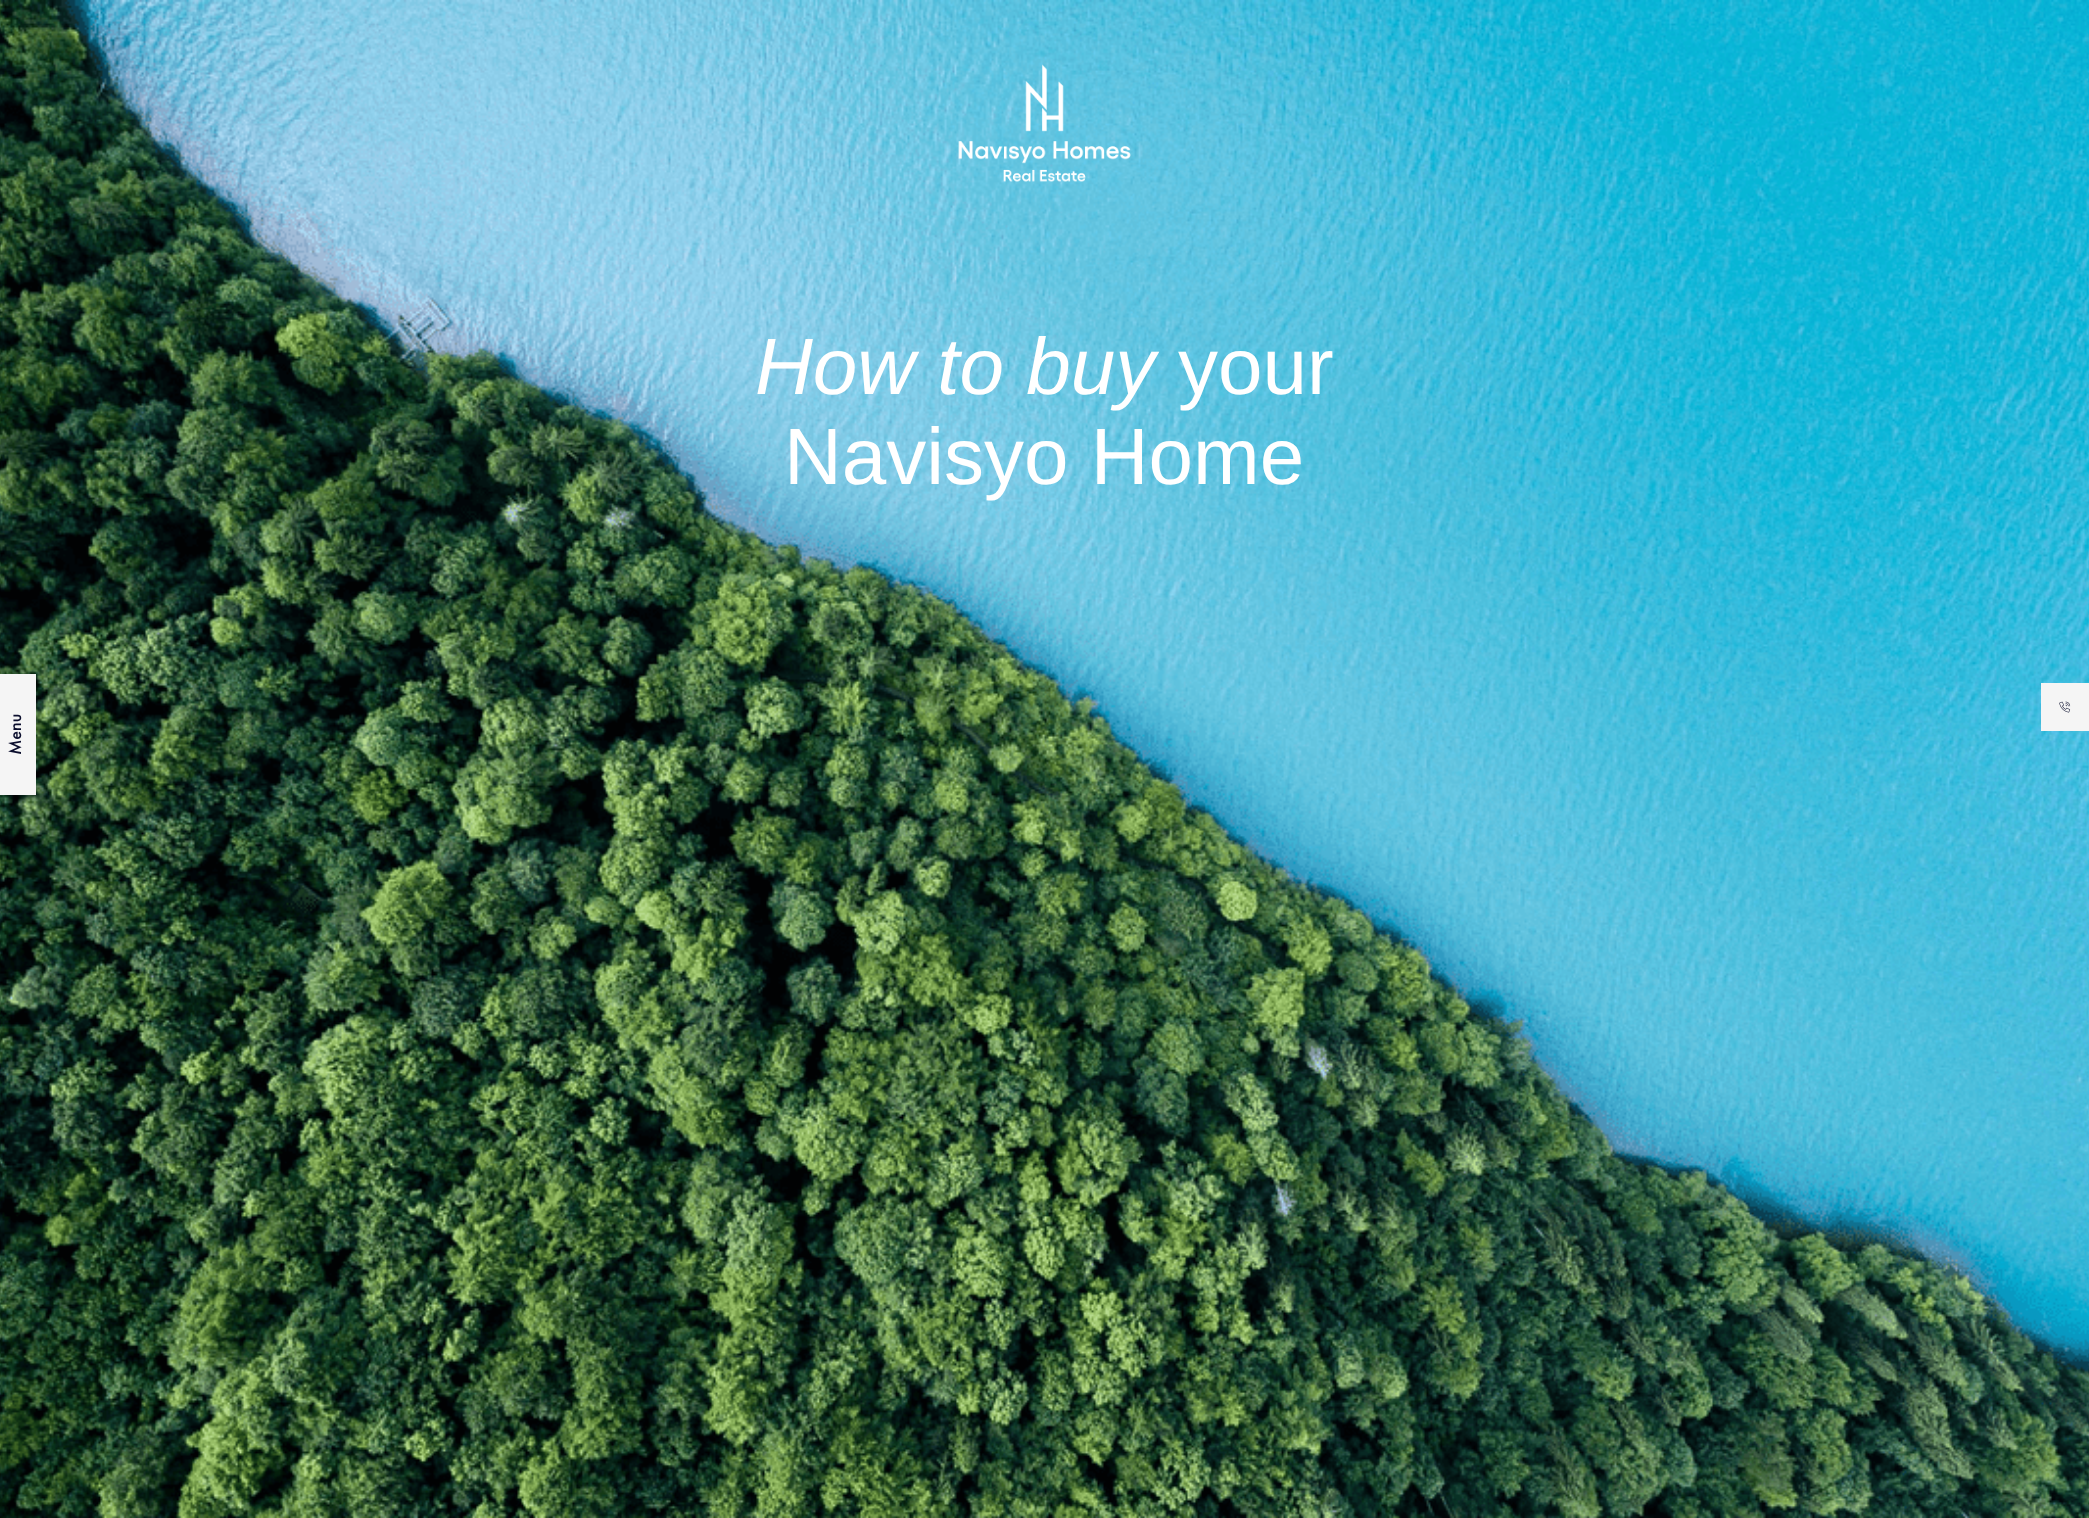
(async () => {
const canvas = document.querySelector("canvas")
canvas.width = 2089
canvas.height = 1518
const c = canvas.getContext("2d")
c.miterLimit = 4
c.fontKerning = "normal"
function T(s,x,y){c.fillText(s,x,y)}
function R(x,y,w,h){c.fillRect(x,y,w,h)}
async function I(src,x,y,w,h){const img=new Image();img.src=src;await img.decode();c.drawImage(img,x,y,w,h)}
c.fillStyle="#fff"
R(0,0,2089,1518)
await I("1.png",0,0,2089,1518)
await I("2.png",958,64,173,118)
c.font="italic 80px Liberation Sans"
T("How to buy",755,394)
c.font="80px Liberation Sans"
T("your",1178,394)
T("Navisyo Home",784,484)
c.fillStyle="#f5f5f5"
R(0,674,36,121)
c.font="500 18px Futura PT"
c.fillStyle="#0b0e2d"
c.save()
c.translate(21,755)
c.rotate(-90 * Math.PI / 180)
c.fillText("Menu",0,0)
c.restore()
c.fillStyle="#f5f5f5"
R(2041,683,48,48)
await I("3.png",2059,701,12,12)
})()
